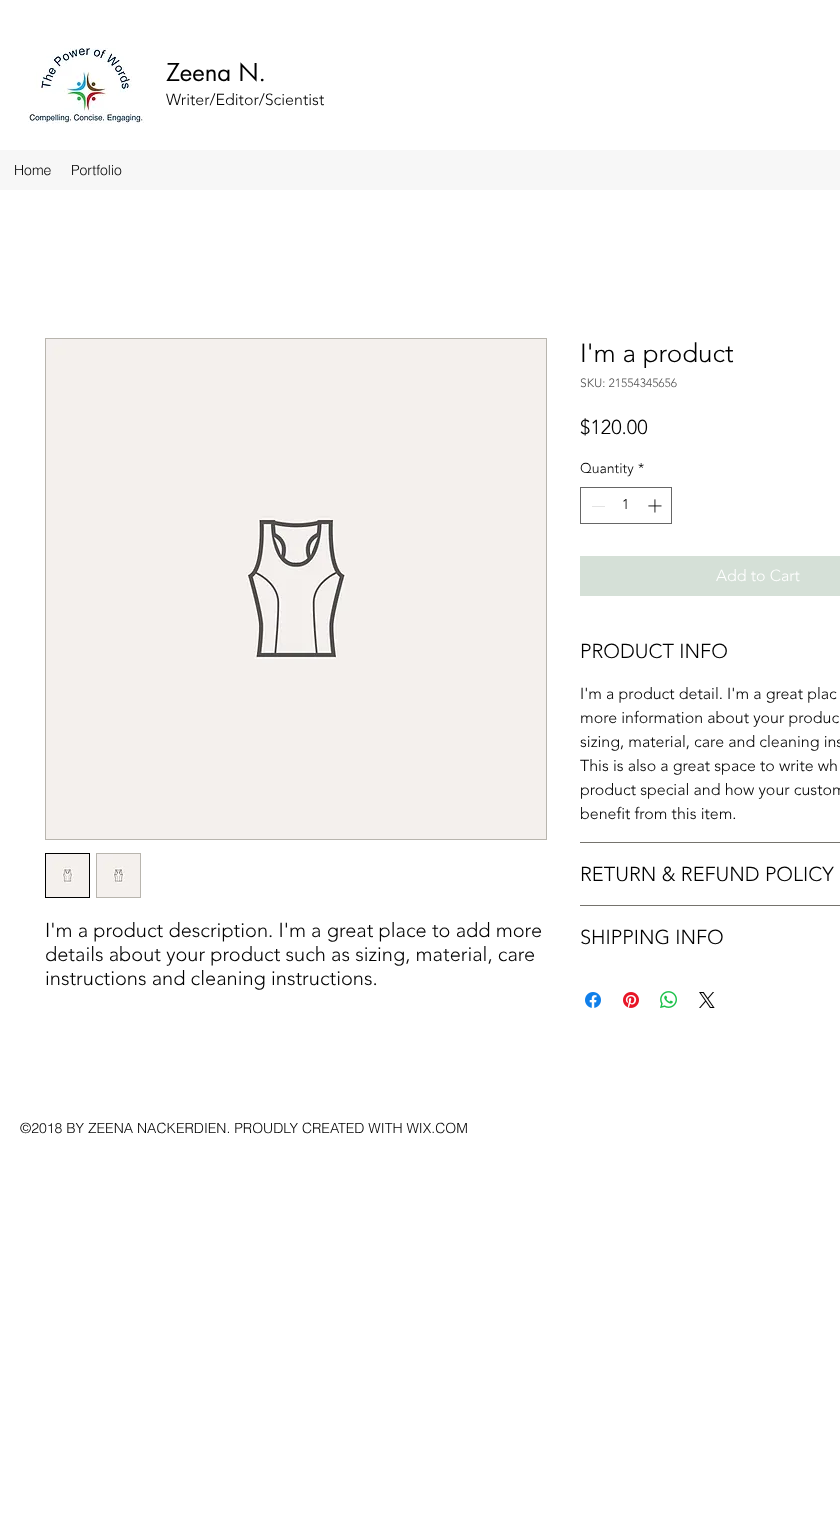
(async () => {
const canvas = document.querySelector("canvas")
canvas.width = 840
canvas.height = 1523
const c = canvas.getContext("2d")
c.miterLimit = 4
c.fontKerning = "normal"
function T(s,x,y){c.fillText(s,x,y)}
function R(x,y,w,h){c.fillRect(x,y,w,h)}
async function I(src,x,y,w,h){const img=new Image();img.src=src;await img.decode();c.drawImage(img,x,y,w,h)}
c.fillStyle="#fff"
R(0,0,840,1523)
await I("1.png",28,48,116,76)
c.font="24px futura"
c.fillStyle="#000"
T("Zeena N.",166,81)
c.font="300 16px 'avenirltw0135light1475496'"
T("Writer/Editor/Scientist",166,105)
c.fillStyle="#f7f7f7"
R(0,150,840,40)
c.font="300 14px helvetica"
c.fillStyle="#000"
T("Home",14,175)
T("Portfolio",71,175)
c.font="300 26px 'avenirltw0135light1475496'"
T("I'm a product",580,362)
c.font="300 12px 'avenirltw0135light1475496'"
c.fillStyle="#525252"
T("SKU: 21554345656",580,387)
c.font="300 20px 'avenirltw0135light1475496'"
c.fillStyle="#000"
T("$120.00",580,434)
c.font="300 14px 'avenirltw0135light1475496'"
T("Quantity",580,473)
T("*",638,473)
c.strokeStyle="#666"
c.strokeRect(580.5,487.5,91,36)
c.fillStyle="#e3e3e3"
R(592,506,13,1)
c.fillStyle="#000"
T("1",622,509)
await I("2.png",648,499,14,14)
c.fillStyle="#d5e0d7"
R(580,556,260,40)
c.font="300 16px 'avenirltw0135light1475496'"
c.fillStyle="#fff"
T("Add to Cart",716,581)
c.fillStyle="#75736d"
R(580,842,260,1)
c.font="300 20px 'avenirltw0135light1475496'"
c.fillStyle="#000"
T("PRODUCT INFO",580,658)
c.font="300 16px 'avenirltw0135light1475496'"
T("I'm a product detail. I'm a great plac",580,699)
T("more information about your produc",580,723)
T("sizing, material, care and cleaning ins",580,747)
T("This is also a great space to write wh",580,771)
T("product special and how your custom",580,795)
T("benefit from this item.",580,819)
c.fillStyle="#75736d"
R(580,905,260,1)
c.font="300 20px 'avenirltw0135light1475496'"
c.fillStyle="#000"
T("RETURN & REFUND POLICY",580,881)
T("SHIPPING INFO",580,944)
await I("3.png",585,992,16,16)
await I("4.png",623,992,16,16)
await I("5.png",660,991,17,17)
await I("6.png",699,992,16,16)
c.strokeStyle="#b8b5ae"
c.strokeRect(45.5,338.5,501,501)
await I("7.png",46,339,500,500)
c.strokeStyle="#000"
c.strokeRect(45.5,853.5,44,44)
await I("8.png",46,854,43,43)
c.fillStyle="#b8b5ae"
R(96,853,45,45)
await I("9.png",97,854,43,43)
c.fillStyle="#000"
T("I'm a product description. I'm a great place to add more",45,937)
T("details about your product such as sizing, material, care",45,961)
T("instructions and cleaning instructions.",45,985)
c.font="300 14px helvetica"
T("©2018 BY ZEENA NACKERDIEN. PROUDLY CREATED WITH WIX.COM",20,1133)
})()
